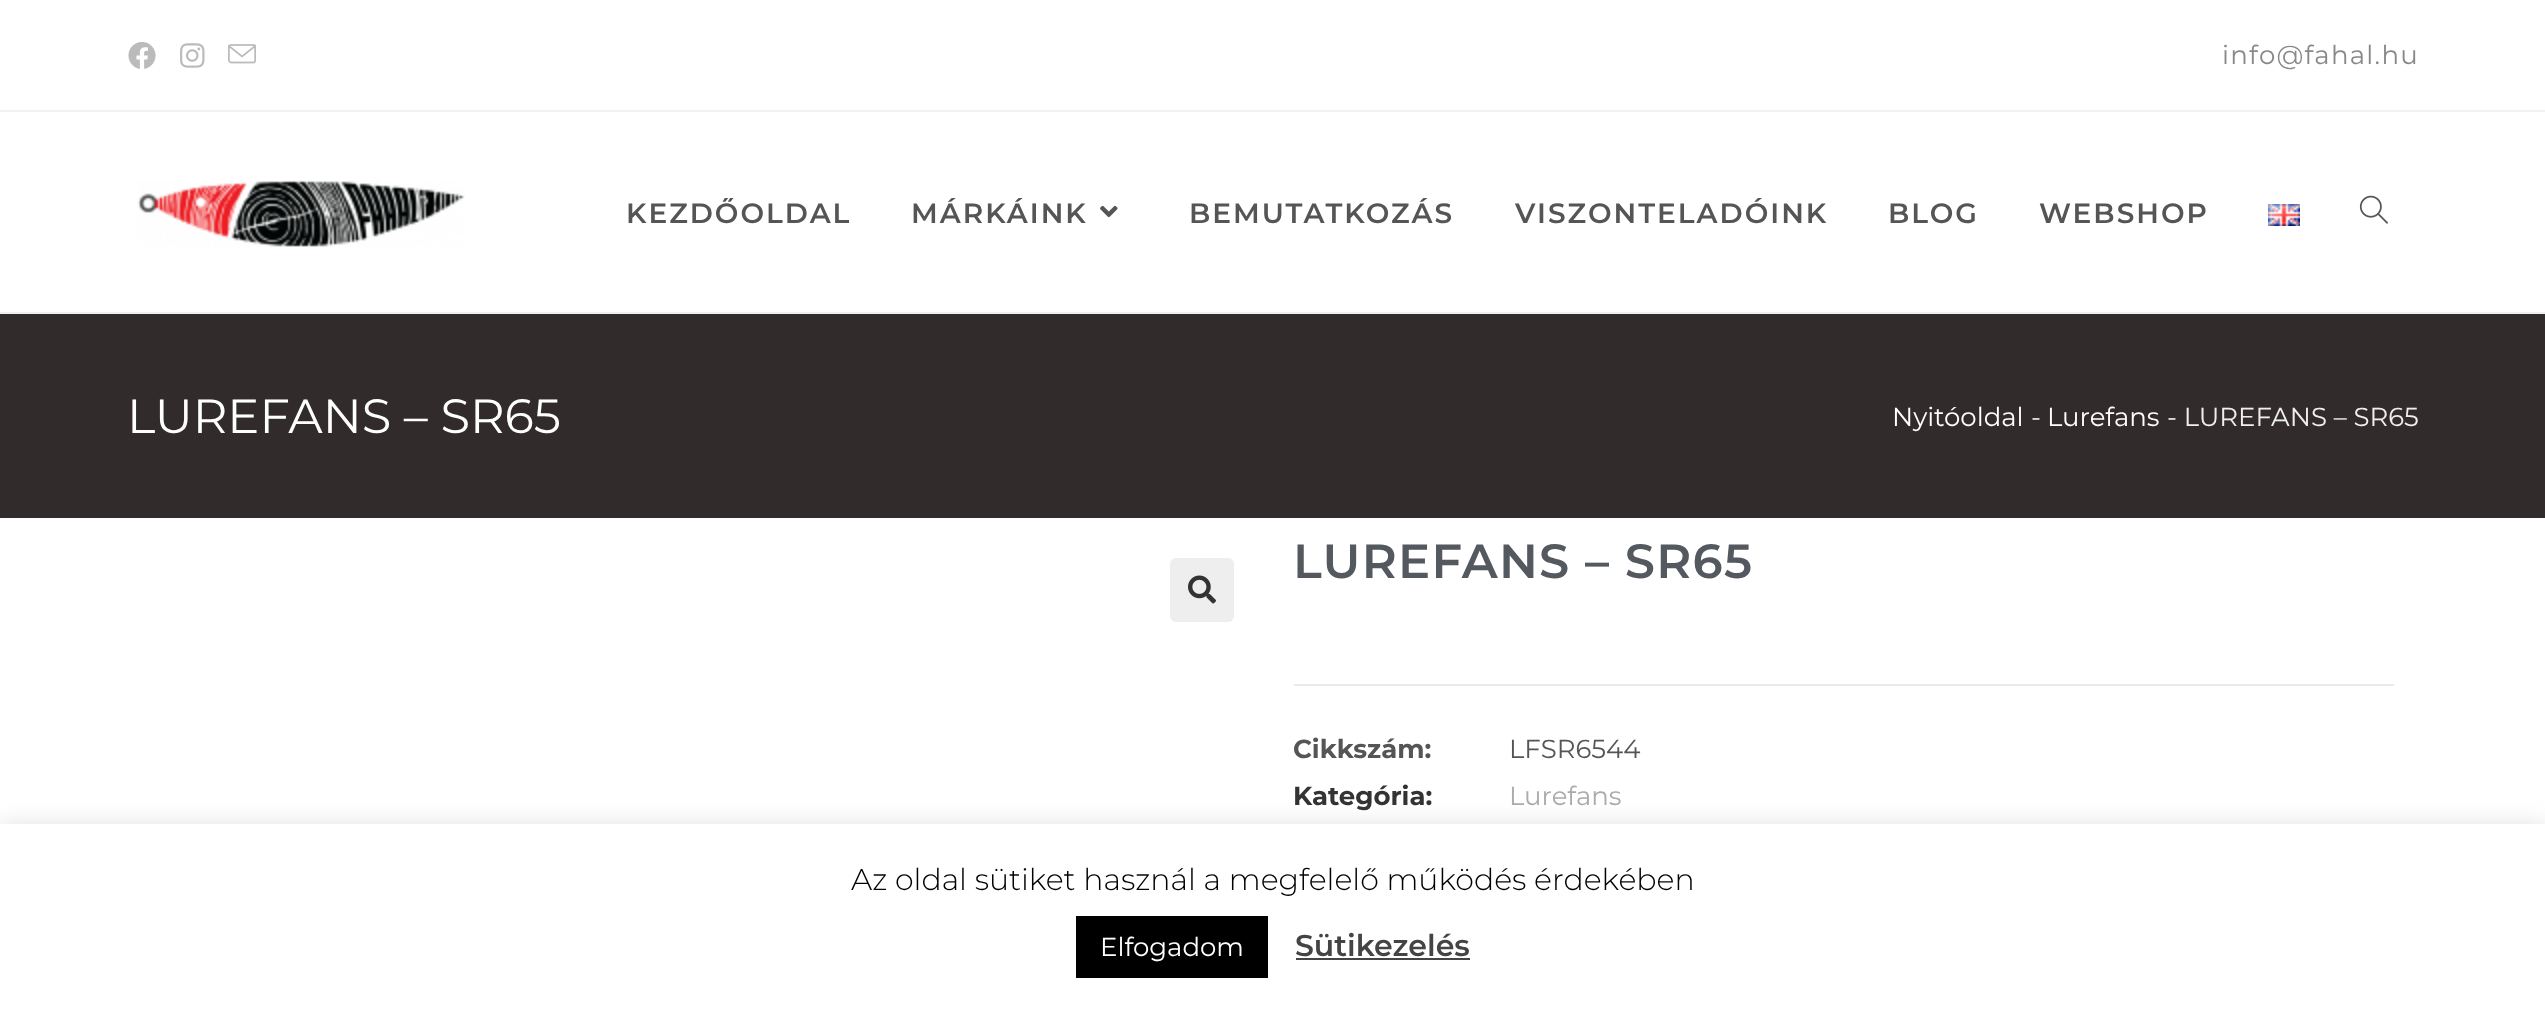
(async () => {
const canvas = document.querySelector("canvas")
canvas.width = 2545
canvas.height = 1012
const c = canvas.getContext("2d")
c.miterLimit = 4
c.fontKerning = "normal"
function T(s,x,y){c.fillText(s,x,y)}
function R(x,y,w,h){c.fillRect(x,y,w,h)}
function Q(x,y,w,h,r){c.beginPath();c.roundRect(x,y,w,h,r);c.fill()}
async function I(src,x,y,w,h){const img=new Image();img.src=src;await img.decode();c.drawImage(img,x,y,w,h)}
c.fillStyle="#fff"
R(0,0,2545,1012)
c.fillStyle="#f1f1f1"
R(0,110,2545,2)
await I("1.png",128,42,28,27)
await I("2.png",180,43,25,25)
await I("3.png",228,44,28,20)
c.letterSpacing="1.25px"
c.font="26px Montserrat"
c.fillStyle="#888"
T("info@fahal.hu",2222,64)
c.fillStyle="#f1f1f1"
R(0,312,2545,2)
await I("4.png",137,180,328,67)
c.letterSpacing="2px"
c.font="600 28px Montserrat"
c.fillStyle="#555"
T("KEZDŐOLDAL",626,223)
T("MÁRKÁINK",911,223)
await I("5.png",1100,205,18,13)
T("BEMUTATKOZÁS",1189,223)
T("VISZONTELADÓINK",1515,223)
T("BLOG",1888,223)
T("WEBSHOP",2039,223)
await I("6.png",2268,204,32,22)
await I("7.png",2359,195,29,29)
c.fillStyle="#322b2b"
R(0,314,2545,204)
c.letterSpacing="0px"
c.font="48px Montserrat"
c.fillStyle="#fff"
T("LUREFANS – SR65",127,433)
c.font="26px Montserrat"
T("Nyitóoldal",1892,426)
c.fillStyle="#efefef"
T("-",2031,426)
c.fillStyle="#fff"
T("Lurefans",2047,426)
c.fillStyle="#efefef"
T("- LUREFANS – SR65",2167,426)
c.fillStyle="#eee"
Q(1170,558,64,64,6)
await I("8.png",1188,575,28,29)
c.letterSpacing="1.25px"
c.font="600 48px Montserrat"
c.fillStyle="#54595f"
T("LUREFANS – SR65",1293,578)
c.fillStyle="#eaeaea"
R(1294,684,1100,2)
c.letterSpacing="0px"
c.font="bold 26px Montserrat"
c.fillStyle="#555"
T("Cikkszám:",1293,758)
c.font="26px Montserrat"
T("LFSR6544",1509,758)
c.font="bold 26px Montserrat"
c.fillStyle="#333"
T("Kategória:",1293,805)
c.font="26px Montserrat"
c.fillStyle="#ababab"
T("Lurefans",1509,805)
c.fillStyle="#acabab4d"
c.filter="blur(10px)"
c.beginPath()
c.rect(0,822,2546,188)
c.fill()
c.filter="none"
c.fillStyle="#fff"
R(0,824,2545,188)
c.font="300 30px Montserrat"
c.fillStyle="#000"
T("Az oldal sütiket használ a megfelelő működés érdekében",851,890)
R(1076,916,192,62)
c.font="26px Montserrat"
c.fillStyle="#fff"
T("Elfogadom",1100,956)
c.font="600 30px Montserrat"
c.fillStyle="#444"
T("Sütikezelés",1295,956)
R(1296,958,174,2)
})()
